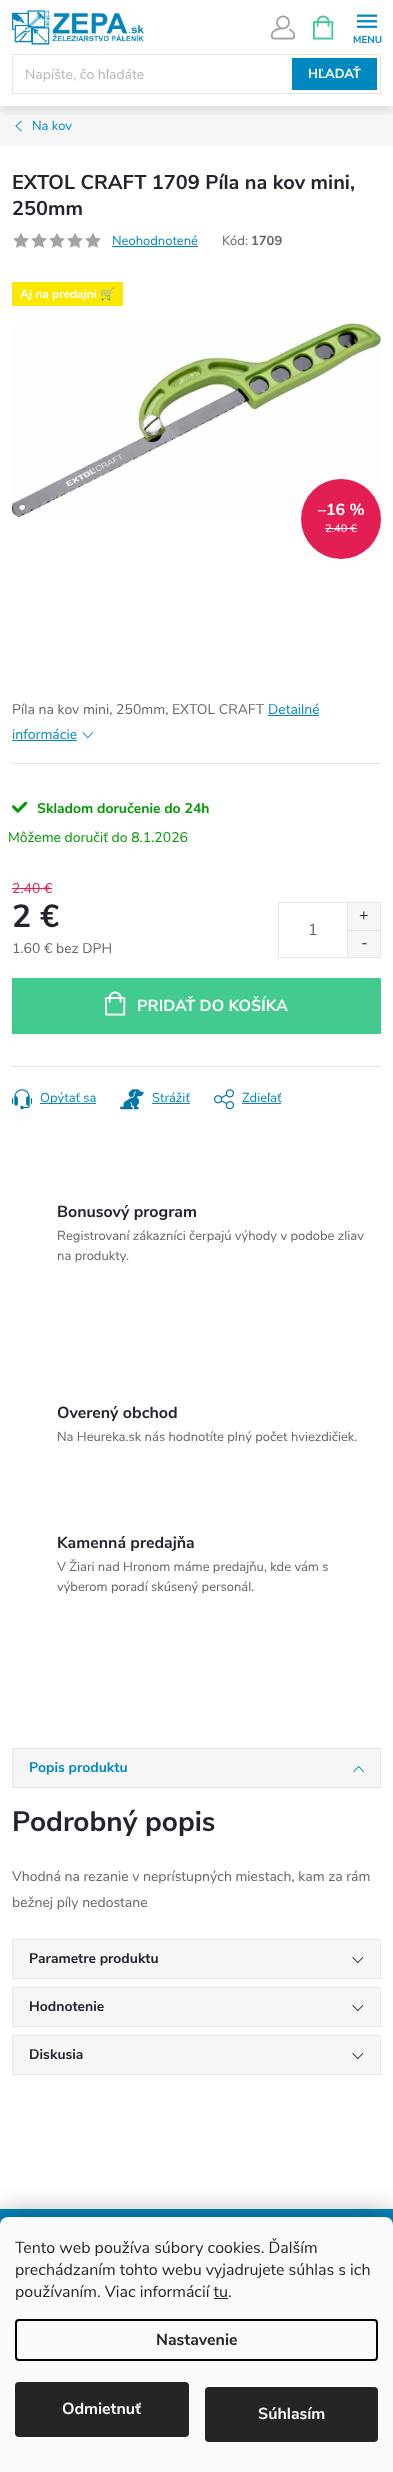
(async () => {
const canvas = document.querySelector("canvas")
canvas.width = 393
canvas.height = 2472
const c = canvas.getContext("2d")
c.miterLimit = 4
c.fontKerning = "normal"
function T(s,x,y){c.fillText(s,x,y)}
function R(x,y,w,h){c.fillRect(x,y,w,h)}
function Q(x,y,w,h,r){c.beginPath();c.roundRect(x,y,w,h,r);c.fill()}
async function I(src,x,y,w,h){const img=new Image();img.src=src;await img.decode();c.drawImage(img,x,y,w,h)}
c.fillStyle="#fff"
R(0,0,393,2472)
await I("1.png",271,15,24,25)
await I("2.png",357,14,20,14)
c.font="bold 10px Nunito Sans"
c.fillStyle="#0088bf"
T("MENU",353,43)
c.fillStyle="#f6f6f6"
R(0,106,393,40)
await I("5.png",15,120,7,12)
c.save()
c.beginPath()
c.rect(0,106,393,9)
c.clip()
c.fillStyle="#24242e1a"
c.filter="blur(4px)"
c.beginPath()
c.rect(0,60,393,52)
c.fill()
c.filter="none"
c.restore()
await I("3.png",12,10,132,35)
await I("4.png",313,15,21,25)
c.strokeStyle="#e4e4e4"
c.strokeRect(12.5,54.5,368,39)
c.font="14px Nunito Sans"
c.fillStyle="#b6b6b6"
T("Napíšte, čo hľadáte",25,79)
c.fillStyle="#0088bf"
R(292,58,85,32)
c.font="bold 13px Nunito Sans"
c.fillStyle="#fff"
T("HĽADAŤ",308,78)
c.font="13px Nunito Sans"
c.fillStyle="#0088bf"
T("Na kov",32,130)
c.font="bold 20px Nunito Sans"
c.fillStyle="#24242e"
T("EXTOL CRAFT 1709 Píla na kov mini,",12,189)
T("250mm",12,215)
await I("6.png",13,233,16,15)
await I("6.png",31,233,16,15)
await I("6.png",49,233,16,15)
await I("6.png",67,233,16,15)
await I("6.png",85,233,16,15)
c.font="13px Nunito Sans"
c.fillStyle="#0088bf"
T("Neohodnotené",112,245)
R(112,246,86,1)
c.fillStyle="#656570"
T("Kód:",222,245)
c.font="bold 13px Nunito Sans"
T("1709",251,245)
c.fillStyle="#fbe704"
R(12,282,111,24)
c.font="bold 12px Nunito Sans"
c.fillStyle="#fff"
T("Aj na predajni",20,298)
c.font="bold 12px Noto Color Emoji"
T("🛒",100,298)
await I("7.png",12,322,369,197)
c.fillStyle="#e31e53"
c.beginPath()
c.arc(341,519,40,0,7)
c.fill()
c.font="bold 16px Nunito Sans"
c.fillStyle="#fff"
T("–16 %",318,515)
c.font="11px Nunito Sans"
T("2.40 €",325,532)
R(325,528,32,1)
c.fillStyle="#e4e4e4"
R(12,763,369,1)
c.font="14px Nunito Sans"
c.fillStyle="#0088bf"
T("Detailné",268,714)
R(268,715,51,1)
T("informácie",12,739)
R(12,740,65,1)
await I("8.png",82,732,12,7)
c.fillStyle="#656565"
T("Píla na kov mini, 250mm, EXTOL CRAFT",12,714)
await I("9.png",12,801,16,12)
c.font="bold 14px Nunito Sans"
c.fillStyle="#009901"
T("Skladom doručenie do 24h",37,813)
c.font="14px Nunito Sans"
T("Môžeme doručiť do 8.1.2026",8,842)
c.fillStyle="#e31e53"
T("2.40 €",12,893)
R(12,888,40,1)
c.font="bold 32px Nunito Sans"
c.fillStyle="#24242e"
T("2 €",12,927)
c.font="14px Nunito Sans"
c.fillStyle="#656565"
T("1.60 € bez DPH",12,953)
c.strokeRect(278.5,902.5,102,55)
c.fillStyle="#f6f6f6"
R(348,903,32,27)
c.fillStyle="#e4e4e4"
R(347,903,1,27)
c.font="16px Nunito Sans"
c.fillStyle="#24242e"
T("+",359,920)
c.fillStyle="#656570"
T("1",308,935)
c.fillStyle="#f6f6f6"
R(348,931,32,26)
c.fillStyle="#e4e4e4"
R(347,930,33,1)
R(347,930,1,27)
c.fillStyle="#24242e"
T("-",361,948)
c.fillStyle="#43ca8f"
R(12,978,369,56)
await I("10.png",105,991,21,25)
c.font="bold 16px Nunito Sans"
c.fillStyle="#fff"
T("PRIDAŤ DO KOŠÍKA",137,1011)
c.fillStyle="#e4e4e4"
R(12,1066,369,1)
await I("11.png",12,1089,20,21)
c.fillStyle="#0088bf"
R(40,1103,56,1)
c.font="13px Nunito Sans"
T("Opýtať sa",40,1102)
await I("12.png",120,1089,24,21)
T("Strážiť",152,1102)
R(152,1103,38,1)
await I("13.png",214,1089,20,21)
T("Zdieľať",242,1102)
R(242,1103,39,1)
c.font="bold 16px Nunito Sans"
c.fillStyle="#24242e"
T("Bonusový program",57,1217)
c.font="13px Nunito Sans"
c.fillStyle="#656565"
T("Registrovaní zákazníci čerpajú výhody v podobe zliav",57,1240)
T("na produkty.",57,1260)
c.font="bold 16px Nunito Sans"
c.fillStyle="#24242e"
T("Overený obchod",57,1418)
c.font="13px Nunito Sans"
c.fillStyle="#656565"
T("Na Heureka.sk nás hodnotíte plný počet hviezdičiek.",57,1441)
c.font="bold 16px Nunito Sans"
c.fillStyle="#24242e"
T("Kamenná predajňa",57,1548)
c.font="13px Nunito Sans"
c.fillStyle="#656565"
T("V Žiari nad Hronom máme predajňu, kde vám s",57,1571)
T("výberom poradí skúsený personál.",57,1591)
c.fillStyle="#f6f6f6"
c.beginPath()
c.rect(12.5,1748.5,368,39)
c.fill()
c.stroke()
c.font="bold 14px Nunito Sans"
c.fillStyle="#0088bf"
T("Popis produktu",29,1772)
await I("14.png",353,1766,11,7)
c.font="bold 28px Nunito Sans"
c.fillStyle="#24242e"
T("Podrobný popis",12,1831)
c.font="14px Nunito Sans"
c.fillStyle="#656565"
T("Vhodná na rezanie v neprístupných miestach, kam za rám",12,1881)
T("bežnej píly nedostane",12,1907)
c.fillStyle="#f6f6f6"
c.beginPath()
c.rect(12.5,1939.5,368,39)
c.fill()
c.stroke()
c.font="bold 14px Nunito Sans"
c.fillStyle="#24242e"
T("Parametre produktu",29,1963)
await I("15.png",352,1957,12,7)
c.fillStyle="#f6f6f6"
c.beginPath()
c.rect(12.5,1987.5,368,39)
c.fill()
c.stroke()
c.fillStyle="#24242e"
T("Hodnotenie",29,2011)
await I("15.png",352,2005,12,7)
c.fillStyle="#f6f6f6"
c.beginPath()
c.rect(12.5,2035.5,368,39)
c.fill()
c.stroke()
c.fillStyle="#24242e"
T("Diskusia",29,2059)
await I("15.png",352,2053,12,7)
c.fillStyle="#0088bf"
R(0,2209,393,16)
c.fillStyle="#1b193980"
c.filter="blur(15px)"
c.beginPath()
c.roundRect(0,2217,393,255,8)
c.fill()
c.filter="none"
c.fillStyle="#f8fafb"
c.beginPath()
c.roundRect(0,2217,393,255,[8,8,0,0])
c.fill()
c.font="16px Nunito Sans"
c.fillStyle="#252525"
T("Tento web používa súbory cookies. Ďalším",15,2253)
T("prechádzaním tohto webu vyjadrujete súhlas s ich",15,2275)
T("používaním. Viac informácií tu.",15,2297)
R(214,2298,14,1)
c.beginPath()
c.roundRect(16,2320,361,40,3)
c.strokeStyle="#000"
c.lineWidth=2
c.stroke()
c.font="bold 16px Nunito Sans"
T("Nastavenie",156,2345)
Q(15,2382,174,55,4)
c.fillStyle="#f8fafb"
T("Odmietnuť",62,2414)
c.fillStyle="#252525"
Q(205,2387,173,55,4)
c.fillStyle="#f8fafb"
T("Súhlasím",258,2419)
})()
